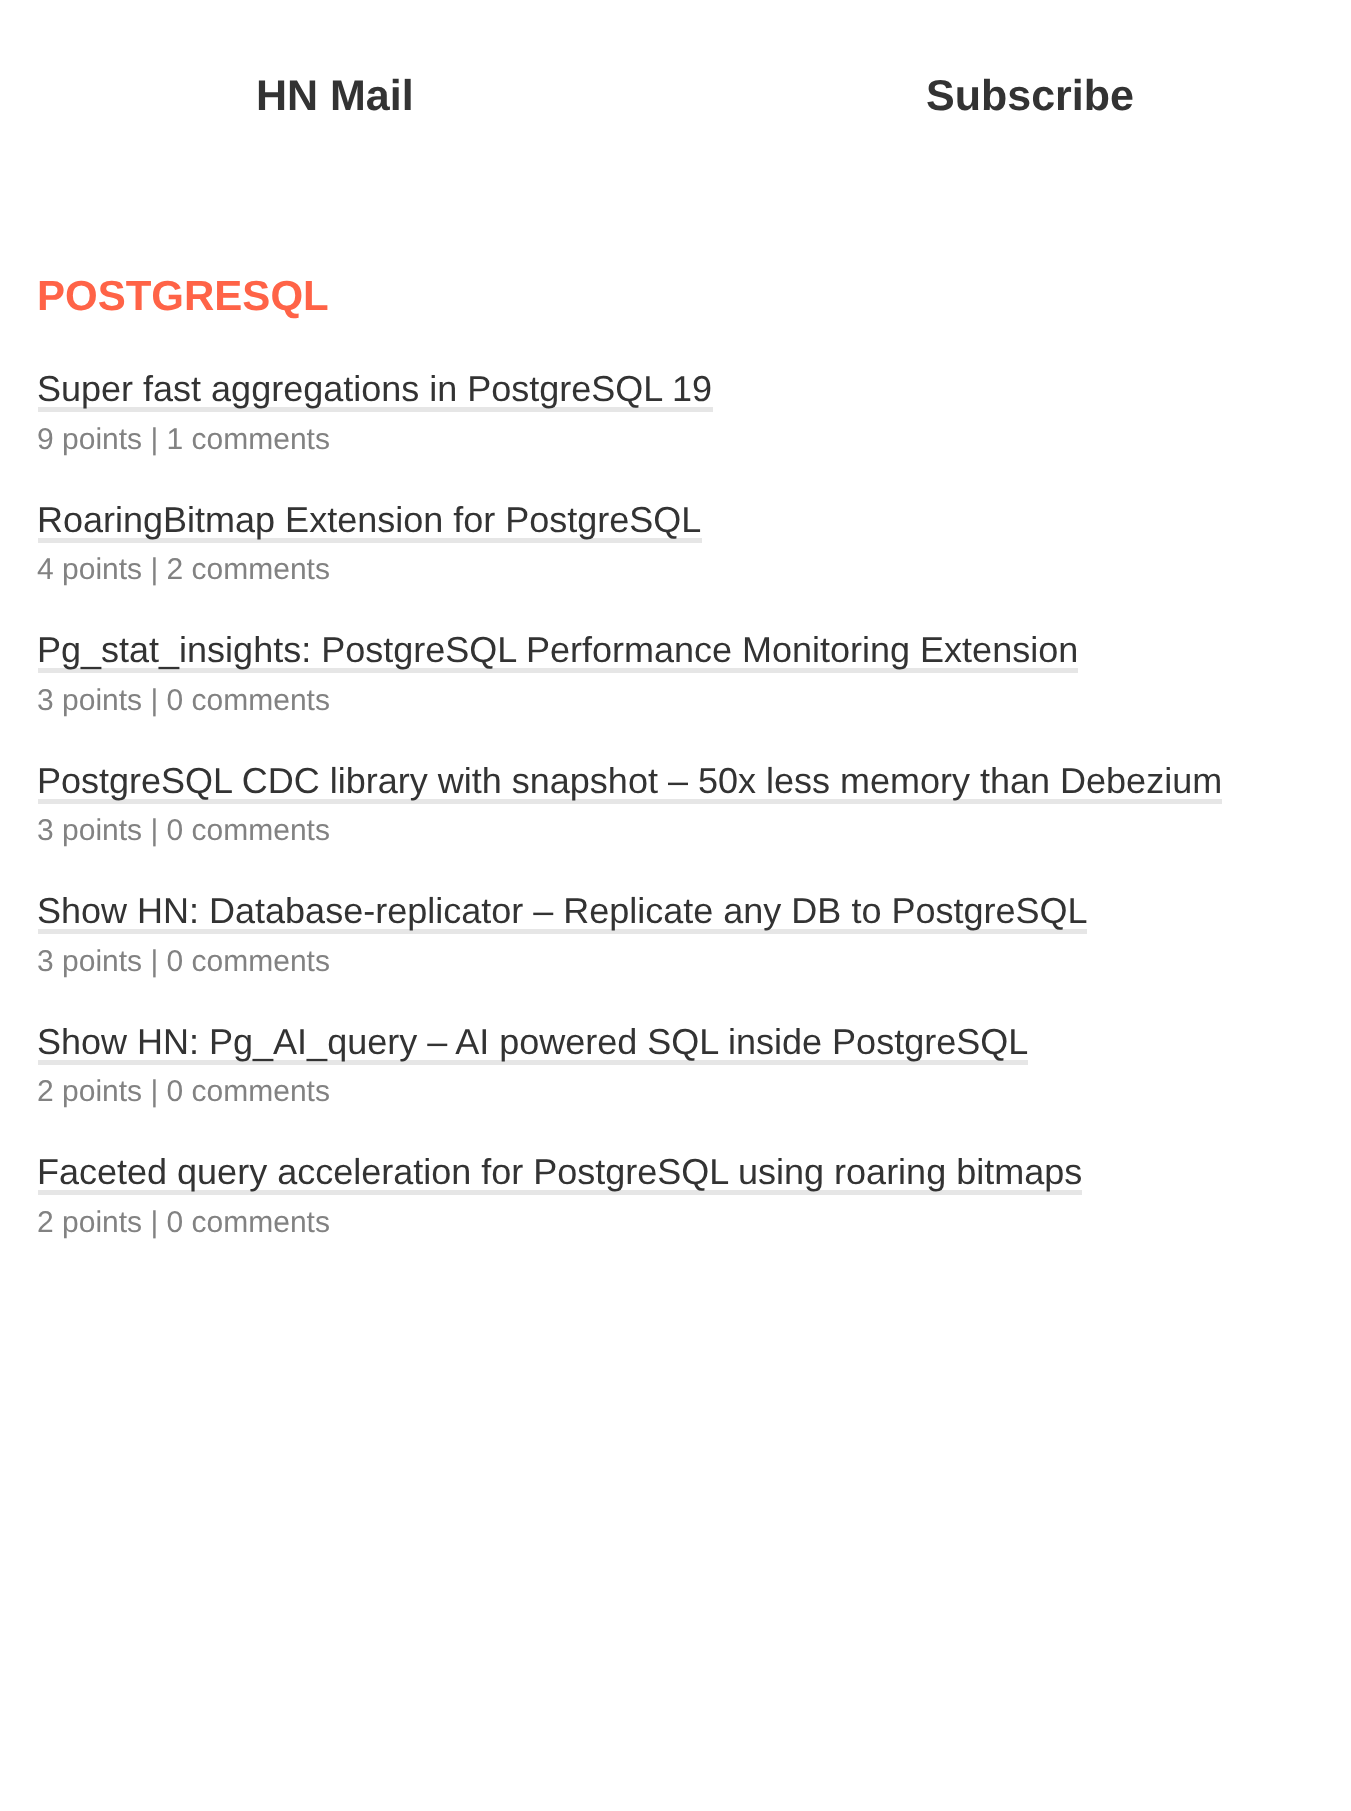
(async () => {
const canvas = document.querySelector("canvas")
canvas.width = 1351
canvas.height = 1811
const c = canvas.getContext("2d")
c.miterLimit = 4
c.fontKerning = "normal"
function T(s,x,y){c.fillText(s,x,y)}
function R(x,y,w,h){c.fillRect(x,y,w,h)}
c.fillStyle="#fff"
R(0,0,1351,1811)
c.font="bold 43px Liberation Sans"
c.fillStyle="#333"
T("HN Mail",256,110)
T("Subscribe",926,110)
c.font="bold 42px Liberation Sans"
c.fillStyle="#ff6347"
T("POSTGRESQL",37,310)
c.fillStyle="#e6e6e6"
R(38,407,675,5)
c.font="36px Liberation Sans"
c.fillStyle="#333"
T("Super fast aggregations in PostgreSQL 19",37,401)
c.font="30px Liberation Sans"
c.fillStyle="#828282"
T("9 points | 1 comments",37,449)
c.fillStyle="#e6e6e6"
R(38,538,664,5)
c.font="36px Liberation Sans"
c.fillStyle="#333"
T("RoaringBitmap Extension for PostgreSQL",37,532)
c.font="30px Liberation Sans"
c.fillStyle="#828282"
T("4 points | 2 comments",37,579)
c.fillStyle="#e6e6e6"
R(38,668,1040,5)
c.font="36px Liberation Sans"
c.fillStyle="#333"
T("Pg_stat_insights: PostgreSQL Performance Monitoring Extension",37,662)
c.font="30px Liberation Sans"
c.fillStyle="#828282"
T("3 points | 0 comments",37,710)
c.fillStyle="#e6e6e6"
R(38,799,1184,5)
c.font="36px Liberation Sans"
c.fillStyle="#333"
T("PostgreSQL CDC library with snapshot – 50x less memory than Debezium",37,793)
c.font="30px Liberation Sans"
c.fillStyle="#828282"
T("3 points | 0 comments",37,840)
c.fillStyle="#e6e6e6"
R(38,929,1049,5)
c.font="36px Liberation Sans"
c.fillStyle="#333"
T("Show HN: Database-replicator – Replicate any DB to PostgreSQL",37,923)
c.font="30px Liberation Sans"
c.fillStyle="#828282"
T("3 points | 0 comments",37,971)
c.fillStyle="#e6e6e6"
R(38,1060,990,5)
c.font="36px Liberation Sans"
c.fillStyle="#333"
T("Show HN: Pg_AI_query – AI powered SQL inside PostgreSQL",37,1054)
c.font="30px Liberation Sans"
c.fillStyle="#828282"
T("2 points | 0 comments",37,1101)
c.fillStyle="#e6e6e6"
R(38,1190,1044,5)
c.font="36px Liberation Sans"
c.fillStyle="#333"
T("Faceted query acceleration for PostgreSQL using roaring bitmaps",37,1184)
c.font="30px Liberation Sans"
c.fillStyle="#828282"
T("2 points | 0 comments",37,1232)
})()
